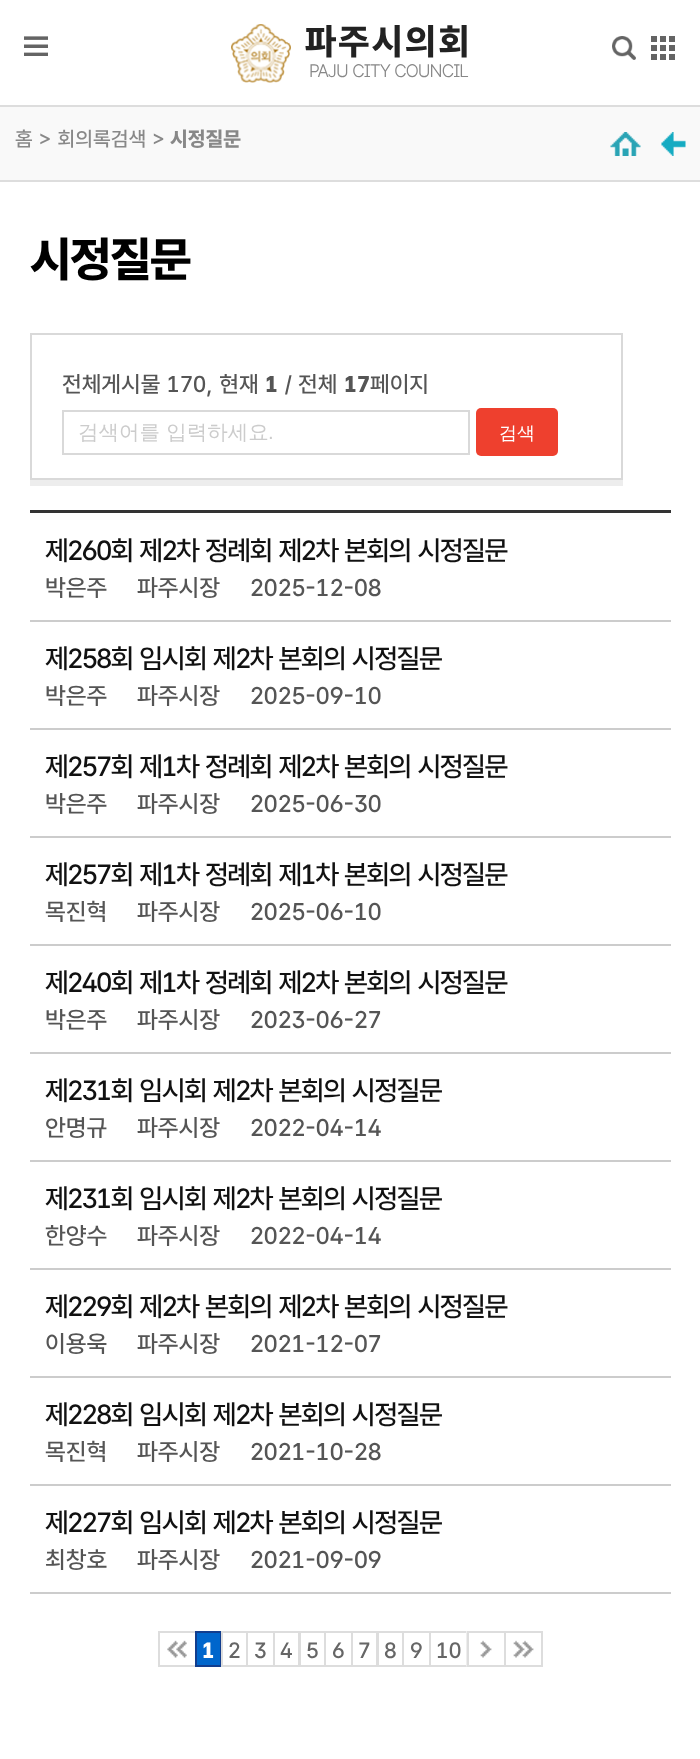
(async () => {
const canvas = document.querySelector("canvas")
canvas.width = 700
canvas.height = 1759
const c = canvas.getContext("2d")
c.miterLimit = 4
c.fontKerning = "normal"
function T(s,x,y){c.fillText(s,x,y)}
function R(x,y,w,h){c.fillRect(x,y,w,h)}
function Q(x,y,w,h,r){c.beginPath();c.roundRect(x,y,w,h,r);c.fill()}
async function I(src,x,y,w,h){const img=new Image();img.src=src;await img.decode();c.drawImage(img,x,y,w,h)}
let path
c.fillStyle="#fff"
R(0,0,700,1759)
c.fillStyle="#ddd"
R(0,105,700,2)
await I("1.png",231,24,60,59)
c.letterSpacing="2.25px"
c.font="800 36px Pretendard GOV"
c.fillStyle="#222"
T("파주시의회",305,54)
c.letterSpacing="-0.9px"
c.font="300 18px Pretendard GOV"
c.fillStyle="#888"
T("PAJU CITY COUNCIL",309,77)
await I("2.png",24,36,24,20)
await I("3.png",612,36,24,24)
await I("4.png",651,36,24,24)
c.fillStyle="#f9f9f9"
R(0,107,700,73)
c.fillStyle="#ddd"
R(0,180,700,2)
c.letterSpacing="0px"
c.font="500 20.5px Pretendard GOV"
c.fillStyle="#888"
T("홈 > 회의록검색 >",15,146)
c.font="800 20.5px Pretendard GOV"
T("시정질문",170,146)
await I("5.png",610,132,31,24)
await I("6.png",661,132,25,24)
c.letterSpacing="-1.5px"
c.font="800 48px Pretendard GOV"
c.fillStyle="#000"
T("시정질문",30,276)
c.fillStyle="#ededed"
path = new Path2D("M30 480v6h593v-147h-1v141z")
c.fill(path)
c.strokeStyle="#d9d9d9"
c.lineWidth=2
c.strokeRect(31,334,591,145)
c.letterSpacing="0px"
c.font="500 22.75px Pretendard GOV"
c.fillStyle="#555"
T("전체게시물 170, 현재",62,392)
c.font="800 22.75px Pretendard GOV"
T("1",265,392)
c.font="500 22.75px Pretendard GOV"
T("/ 전체",285,392)
c.font="800 22.75px Pretendard GOV"
T("17",344,392)
c.font="500 22.75px Pretendard GOV"
T("페이지",370,392)
c.strokeRect(63,411,406,43)
c.font="500 20.5px WenQuanYi Zen Hei"
c.fillStyle="#ccc"
T("검색어를 입력하세요",78,439)
c.font="20.5px Liberation Sans"
T(".",268,439)
c.fillStyle="#ee402e"
Q(476,408,82,48,5)
c.font="500 18px WenQuanYi Zen Hei"
c.fillStyle="#fff"
T("검색",499,439)
c.fillStyle="#333"
R(30,510,641,3)
c.fillStyle="#ccc"
R(30,620,641,2)
c.letterSpacing="-1.5px"
c.font="500 27.6px Pretendard GOV"
c.fillStyle="#111"
T("제260회 제2차 정례회 제2차 본회의 시정질문",45,560)
c.letterSpacing="0px"
c.font="500 24px Pretendard GOV"
c.fillStyle="#555"
T("박은주",45,596)
T("파주시장",137,596)
T("2025-12-08",250,596)
c.fillStyle="#ccc"
R(30,728,641,2)
c.letterSpacing="-1.5px"
c.font="500 27.6px Pretendard GOV"
c.fillStyle="#111"
T("제258회 임시회 제2차 본회의 시정질문",45,668)
c.letterSpacing="0px"
c.font="500 24px Pretendard GOV"
c.fillStyle="#555"
T("박은주",45,704)
T("파주시장",137,704)
T("2025-09-10",250,704)
c.fillStyle="#ccc"
R(30,836,641,2)
c.letterSpacing="-1.5px"
c.font="500 27.6px Pretendard GOV"
c.fillStyle="#111"
T("제257회 제1차 정례회 제2차 본회의 시정질문",45,776)
c.letterSpacing="0px"
c.font="500 24px Pretendard GOV"
c.fillStyle="#555"
T("박은주",45,812)
T("파주시장",137,812)
T("2025-06-30",250,812)
c.fillStyle="#ccc"
R(30,944,641,2)
c.letterSpacing="-1.5px"
c.font="500 27.6px Pretendard GOV"
c.fillStyle="#111"
T("제257회 제1차 정례회 제1차 본회의 시정질문",45,884)
c.letterSpacing="0px"
c.font="500 24px Pretendard GOV"
c.fillStyle="#555"
T("목진혁",45,920)
T("파주시장",137,920)
T("2025-06-10",250,920)
c.fillStyle="#ccc"
R(30,1052,641,2)
c.letterSpacing="-1.5px"
c.font="500 27.6px Pretendard GOV"
c.fillStyle="#111"
T("제240회 제1차 정례회 제2차 본회의 시정질문",45,992)
c.letterSpacing="0px"
c.font="500 24px Pretendard GOV"
c.fillStyle="#555"
T("박은주",45,1028)
T("파주시장",137,1028)
T("2023-06-27",250,1028)
c.fillStyle="#ccc"
R(30,1160,641,2)
c.letterSpacing="-1.5px"
c.font="500 27.6px Pretendard GOV"
c.fillStyle="#111"
T("제231회 임시회 제2차 본회의 시정질문",45,1100)
c.letterSpacing="0px"
c.font="500 24px Pretendard GOV"
c.fillStyle="#555"
T("안명규",45,1136)
T("파주시장",137,1136)
T("2022-04-14",250,1136)
c.fillStyle="#ccc"
R(30,1268,641,2)
c.letterSpacing="-1.5px"
c.font="500 27.6px Pretendard GOV"
c.fillStyle="#111"
T("제231회 임시회 제2차 본회의 시정질문",45,1208)
c.letterSpacing="0px"
c.font="500 24px Pretendard GOV"
c.fillStyle="#555"
T("한양수",45,1244)
T("파주시장",137,1244)
T("2022-04-14",250,1244)
c.fillStyle="#ccc"
R(30,1376,641,2)
c.letterSpacing="-1.5px"
c.font="500 27.6px Pretendard GOV"
c.fillStyle="#111"
T("제229회 제2차 본회의 제2차 본회의 시정질문",45,1316)
c.letterSpacing="0px"
c.font="500 24px Pretendard GOV"
c.fillStyle="#555"
T("이용욱",45,1352)
T("파주시장",137,1352)
T("2021-12-07",250,1352)
c.fillStyle="#ccc"
R(30,1484,641,2)
c.letterSpacing="-1.5px"
c.font="500 27.6px Pretendard GOV"
c.fillStyle="#111"
T("제228회 임시회 제2차 본회의 시정질문",45,1424)
c.letterSpacing="0px"
c.font="500 24px Pretendard GOV"
c.fillStyle="#555"
T("목진혁",45,1460)
T("파주시장",137,1460)
T("2021-10-28",250,1460)
c.fillStyle="#ccc"
R(30,1592,641,2)
c.letterSpacing="-1.5px"
c.font="500 27.6px Pretendard GOV"
c.fillStyle="#111"
T("제227회 임시회 제2차 본회의 시정질문",45,1532)
c.letterSpacing="0px"
c.font="500 24px Pretendard GOV"
c.fillStyle="#555"
T("최창호",45,1568)
T("파주시장",137,1568)
T("2021-09-09",250,1568)
await I("7.png",167,1640,20,18)
c.strokeStyle="#ddd"
c.strokeRect(159,1632,37,34)
c.fillStyle="#06c"
c.beginPath()
c.rect(196,1632,25,34)
c.fill()
c.strokeStyle="#113d8e"
c.stroke()
c.font="800 22px Pretendard GOV"
c.fillStyle="#fff"
T("1",202,1658)
c.strokeStyle="#ddd"
c.strokeRect(222,1632,25,34)
c.font="500 22px Pretendard GOV"
c.fillStyle="#666"
T("2",228,1658)
c.strokeRect(247,1632,27,34)
T("3",254,1658)
c.strokeRect(274,1632,25,34)
T("4",280,1658)
c.strokeRect(300,1632,25,34)
T("5",306,1658)
c.strokeRect(325,1632,27,34)
T("6",332,1658)
c.strokeRect(352,1632,25,34)
T("7",358,1658)
c.strokeRect(378,1632,25,34)
T("8",384,1658)
c.strokeRect(403,1632,27,34)
T("9",410,1658)
c.strokeRect(430,1632,37,34)
T("10",436,1658)
await I("8.png",466,1631,26,36)
c.strokeRect(468,1632,37,34)
await I("9.png",506,1633,28,32)
c.strokeRect(505,1632,37,34)
})()
